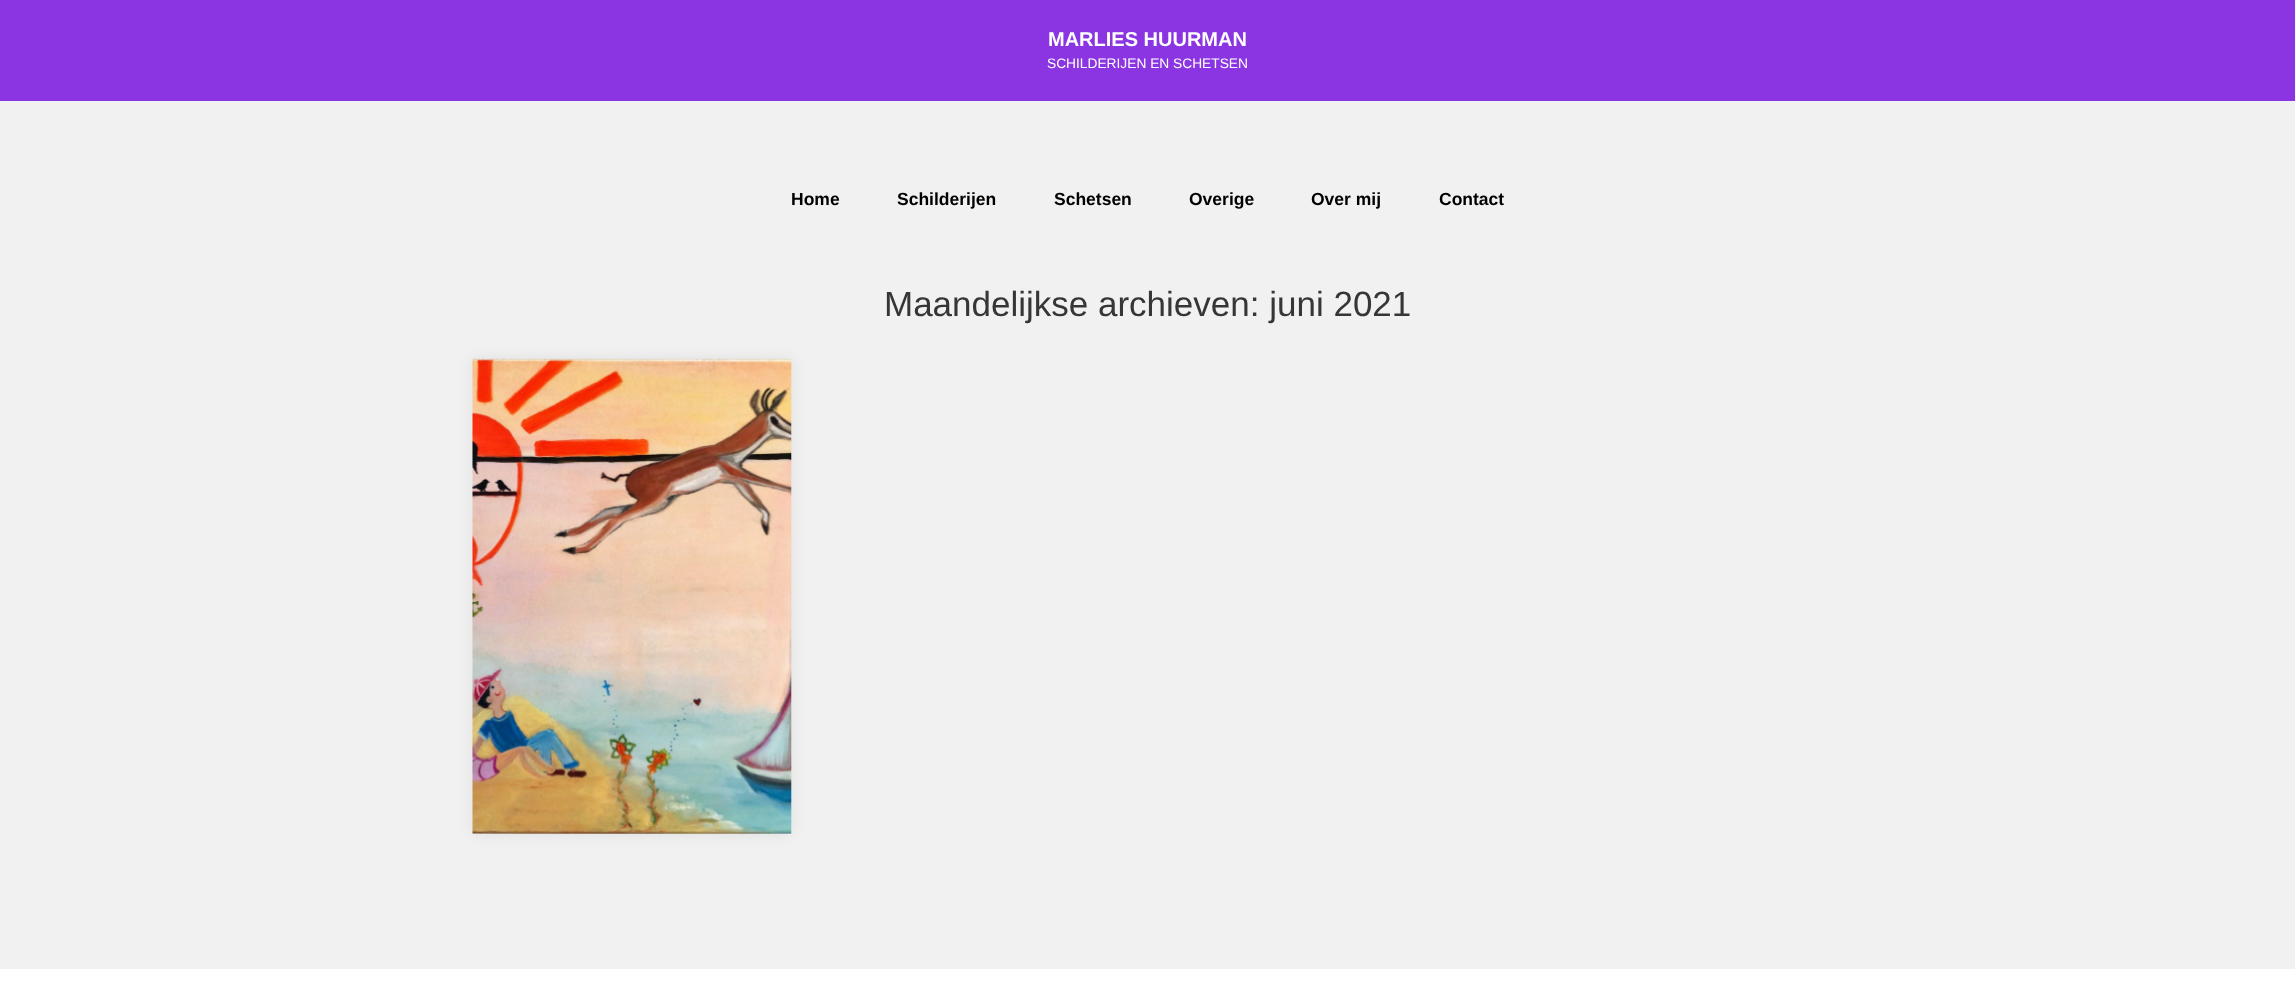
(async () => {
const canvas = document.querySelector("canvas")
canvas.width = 2295
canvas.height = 982
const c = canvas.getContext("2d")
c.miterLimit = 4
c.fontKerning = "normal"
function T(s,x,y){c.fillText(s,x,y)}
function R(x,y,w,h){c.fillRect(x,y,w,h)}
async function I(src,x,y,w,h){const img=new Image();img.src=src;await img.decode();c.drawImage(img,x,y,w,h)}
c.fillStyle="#fff"
R(0,0,2295,982)
c.fillStyle="#8b34e2"
R(0,0,2295,101)
c.font="bold 20px Liberation Sans"
c.fillStyle="#fff"
T("MARLIES HUURMAN",1048,46)
c.font="13.75px Liberation Sans"
T("SCHILDERIJEN EN SCHETSEN",1047,68)
c.fillStyle="#f1f1f1"
R(0,101,2295,868)
c.font="bold 17.5px Liberation Sans"
c.fillStyle="#000"
T("Home",791,205)
T("Schilderijen",897,205)
T("Schetsen",1054,205)
T("Overige",1189,205)
T("Over mij",1311,205)
T("Contact",1439,205)
c.font="35px Liberation Sans"
c.fillStyle="#363636"
T("Maandelijkse archieven: juni 2021",884,316)
c.fillStyle="#00000012"
c.filter="blur(8px)"
c.beginPath()
c.rect(473,359,318,475)
c.fill()
c.filter="none"
await I("1.png",472,358,320,476)
})()
